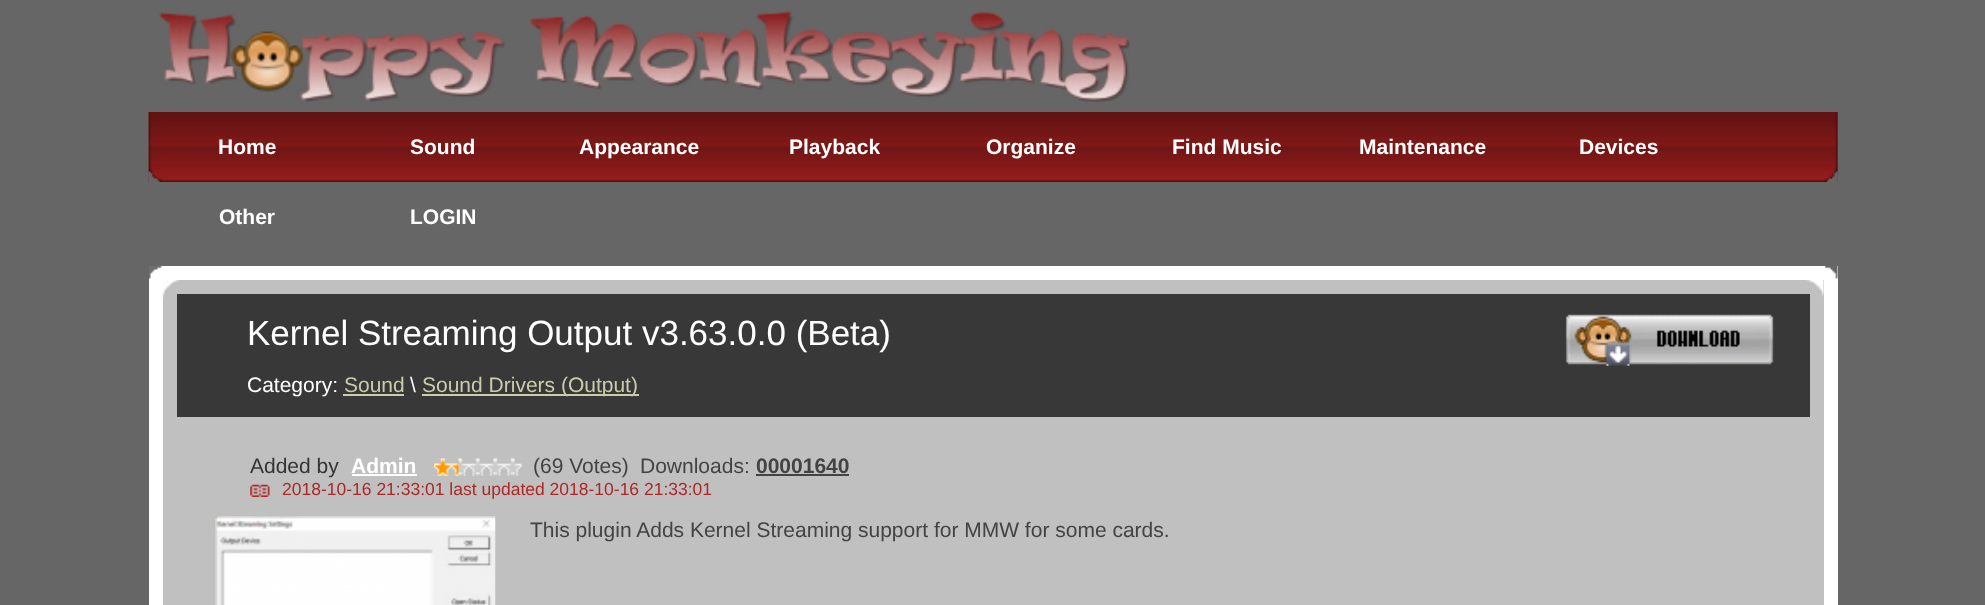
(async () => {
const canvas = document.querySelector("canvas")
canvas.width = 1985
canvas.height = 605
const c = canvas.getContext("2d")
c.miterLimit = 4
c.fontKerning = "normal"
function T(s,x,y){c.fillText(s,x,y)}
function R(x,y,w,h){c.fillRect(x,y,w,h)}
async function I(src,x,y,w,h){const img=new Image();img.src=src;await img.decode();c.drawImage(img,x,y,w,h)}
c.fillStyle="#666"
R(0,0,1985,605)
await I("1.png",159,10,971,92)
await I("2.png",148,112,1690,70)
await I("3.png",148,112,15,70)
await I("4.png",1823,112,15,70)
c.font="bold 21px Liberation Sans"
c.fillStyle="#fff"
T("Home",218,154)
T("Sound",410,154)
T("Appearance",579,154)
T("Playback",789,154)
T("Organize",986,154)
T("Find Music",1172,154)
T("Maintenance",1359,154)
T("Devices",1579,154)
T("Other",219,224)
T("LOGIN",410,224)
R(149,266,1689,339)
await I("5.png",149,266,13,13)
await I("6.png",1824,266,14,13)
c.fillStyle="#c0c0c0"
R(163,280,1661,325)
await I("7.png",162,280,18,18)
await I("8.png",1806,280,18,17)
c.fillStyle="#383838"
R(177,294,1318,123)
c.font="35px Liberation Sans"
c.fillStyle="#fff"
T("Kernel Streaming Output v3.63.0.0 (Beta)",247,345)
c.fillStyle="#383838"
R(1495,294,315,123)
await I("9.png",1565,314,209,52)
c.font="21px Liberation Sans"
c.fillStyle="#fff"
T("Category:",247,392)
c.fillStyle="#cca"
T("Sound",344,392)
R(343,394,61,2)
c.fillStyle="#fff"
T("\\",410,392)
c.fillStyle="#cca"
R(422,394,217,2)
T("Sound Drivers (Output)",422,392)
c.fillStyle="#343434"
T("Added by",250,473)
c.font="bold 21px Liberation Sans"
c.fillStyle="#fff"
T("Admin",351,473)
R(352,474,65,2)
await I("10.png",434,458,88,18)
await I("11.png",434,458,25,18)
c.font="21px Liberation Sans"
c.fillStyle="#434343"
T("(69 Votes)",533,473)
T("Downloads:",640,473)
c.font="bold 21px Liberation Sans"
T("00001640",756,473)
R(756,474,93,2)
await I("12.png",250,484,20,13)
c.font="17.5px Liberation Sans"
c.fillStyle="#af2626"
T("2018-10-16 21:33:01 last updated 2018-10-16 21:33:01",282,495)
await I("13.png",215,516,281,89)
c.font="21px Liberation Sans"
c.fillStyle="#434343"
T("This plugin Adds Kernel Streaming support for MMW for some cards.",530,537)
})()
